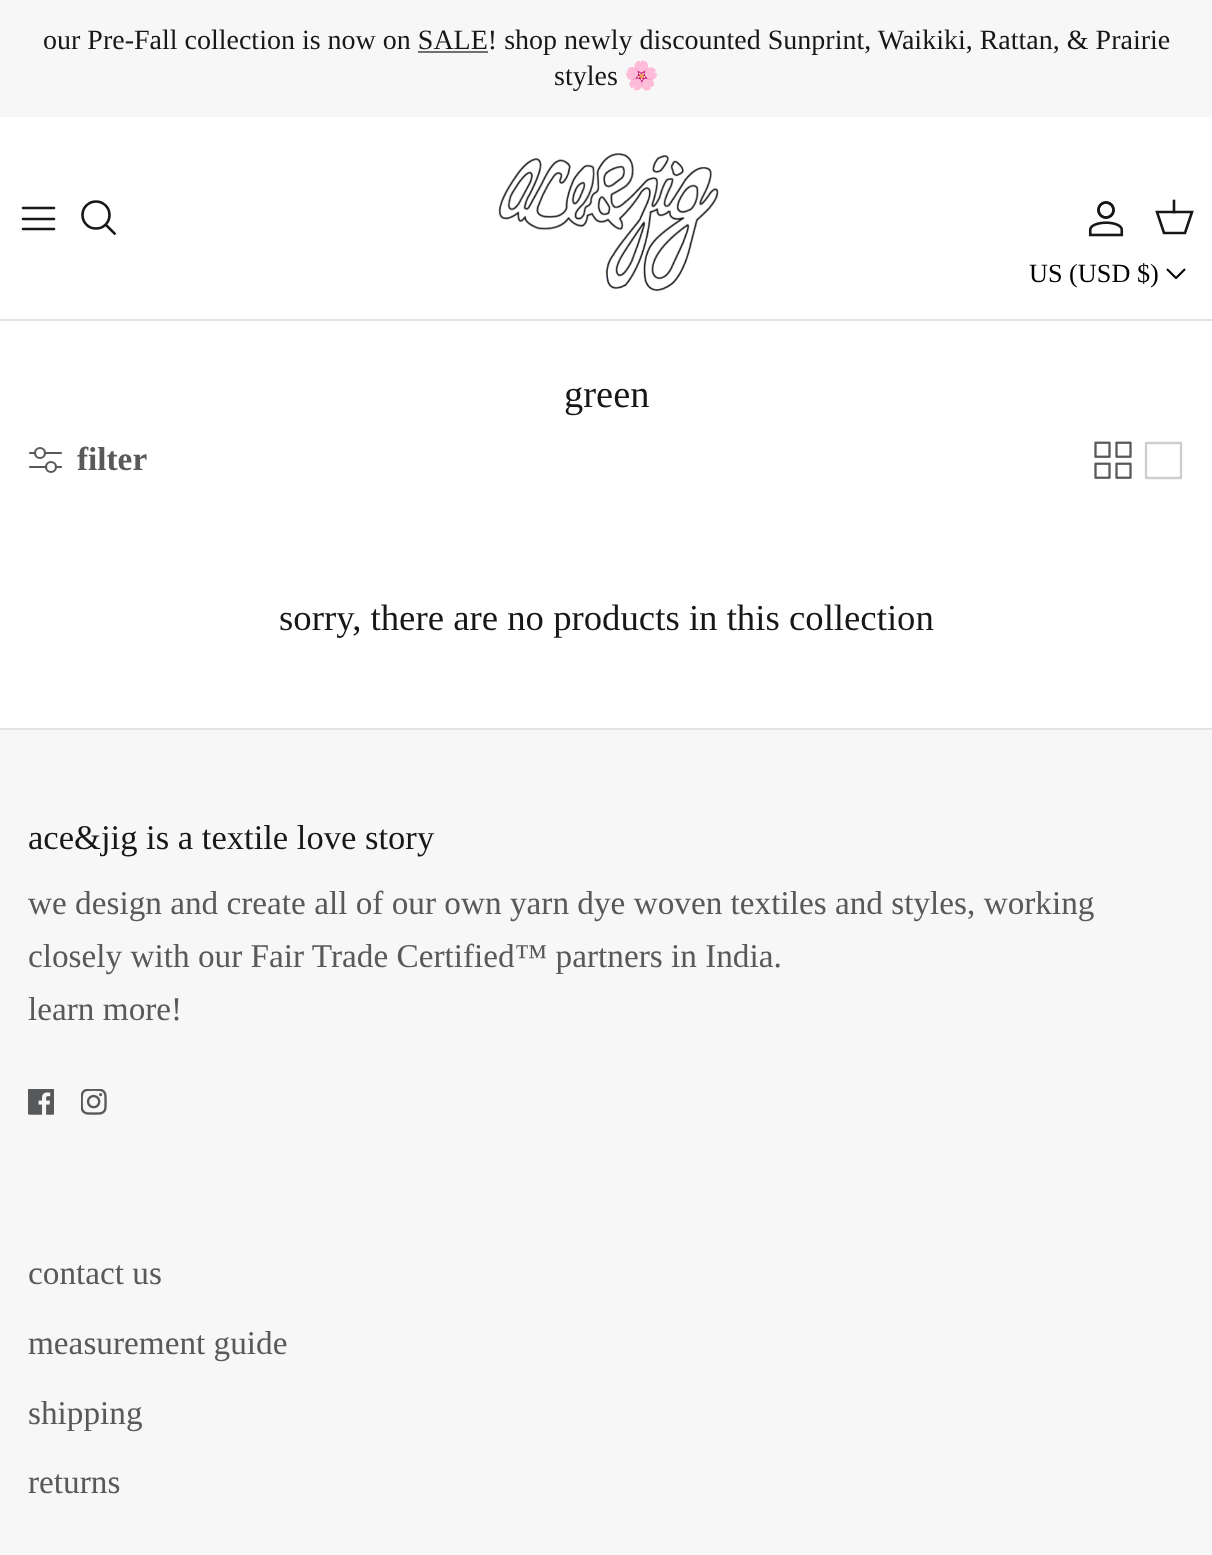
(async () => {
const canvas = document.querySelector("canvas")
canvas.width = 1212
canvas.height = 1555
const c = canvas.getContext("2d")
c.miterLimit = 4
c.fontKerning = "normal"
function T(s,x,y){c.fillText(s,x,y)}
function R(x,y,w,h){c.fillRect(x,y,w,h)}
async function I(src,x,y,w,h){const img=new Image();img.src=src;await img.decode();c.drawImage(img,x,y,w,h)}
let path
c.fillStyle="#fff"
R(0,0,1212,1555)
c.fillStyle="#f7f7f8"
R(0,0,1212,117)
c.font="28px Liberation Serif"
c.fillStyle="#171717"
T("our Pre-Fall collection is now on SALE! shop newly discounted Sunprint, Waikiki, Rattan, & Prairie",43,49)
c.fillStyle="#717171"
R(418,51,70,2)
c.fillStyle="#171717"
T("styles",554,85)
c.font="28px Noto Color Emoji"
T("🌸",624,85)
c.fillStyle="#e2e2e2"
R(0,319,1212,2)
path = new Path2D("M23 219h31m-31-11h31m-31 21h31")
c.strokeStyle="#171717"
c.lineWidth=2.6
c.lineCap="round"
c.lineJoin="round"
c.stroke(path)
c.beginPath()
c.arc(96,215,13.5,0,7)
c.stroke()
path = new Path2D("M106.5 225.5l8 8")
c.lineCap="square"
c.lineJoin="miter"
c.stroke(path)
await I("1.png",498,153,221,139)
await I("2.png",1088,201,36,36)
path = new Path2D("M1157 212h35l-7 21h-21z")
c.lineCap="butt"
c.stroke(path)
path = new Path2D("M1174 212v-11")
c.lineCap="square"
c.stroke(path)
c.font="26.25px Liberation Serif"
c.fillStyle="#000"
T("US (USD $)",1029,282)
await I("3.png",1166,268,20,12)
c.font="38.5px Liberation Serif"
c.fillStyle="#171717"
T("green",564,407)
path = new Path2D("M30 453h31m-31 14h31")
c.strokeStyle="#58595a"
c.lineWidth=2.2
c.lineCap="round"
c.lineJoin="round"
c.stroke(path)
c.fillStyle="#fff"
c.beginPath()
c.arc(40,453,5,0,7)
c.fill()
c.stroke()
c.beginPath()
c.arc(51,467,5,0,7)
c.fill()
c.stroke()
c.font="bold 33.25px Liberation Serif"
c.fillStyle="#58595a"
T("filter",77,470)
await I("4.png",1094,441,38,38)
path = new Path2D("M1146 443h35v35h-35v-35")
c.strokeStyle="#cdcdce"
c.lineWidth=2.3
c.stroke(path)
c.font="36.75px Liberation Serif"
c.fillStyle="#171717"
T("sorry, there are no products in this collection",279,630)
c.fillStyle="#f7f7f8"
R(0,730,1212,825)
c.fillStyle="#e4e4e4"
R(0,728,1212,2)
c.font="34.6px Liberation Serif"
c.fillStyle="#171717"
T("ace&jig is a textile love story",28,849)
c.font="33.25px Liberation Serif"
c.fillStyle="#58595a"
T("we design and create all of our own yarn dye woven textiles and styles, working",28,914)
T("closely with our Fair Trade Certified™ partners in India.",28,967)
T("learn more!",28,1020)
await I("5.png",28,1089,26,26)
await I("6.png",81,1089,26,26)
T("contact us",28,1284)
T("measurement guide",28,1354)
T("shipping",28,1424)
T("returns",28,1493)
})()
